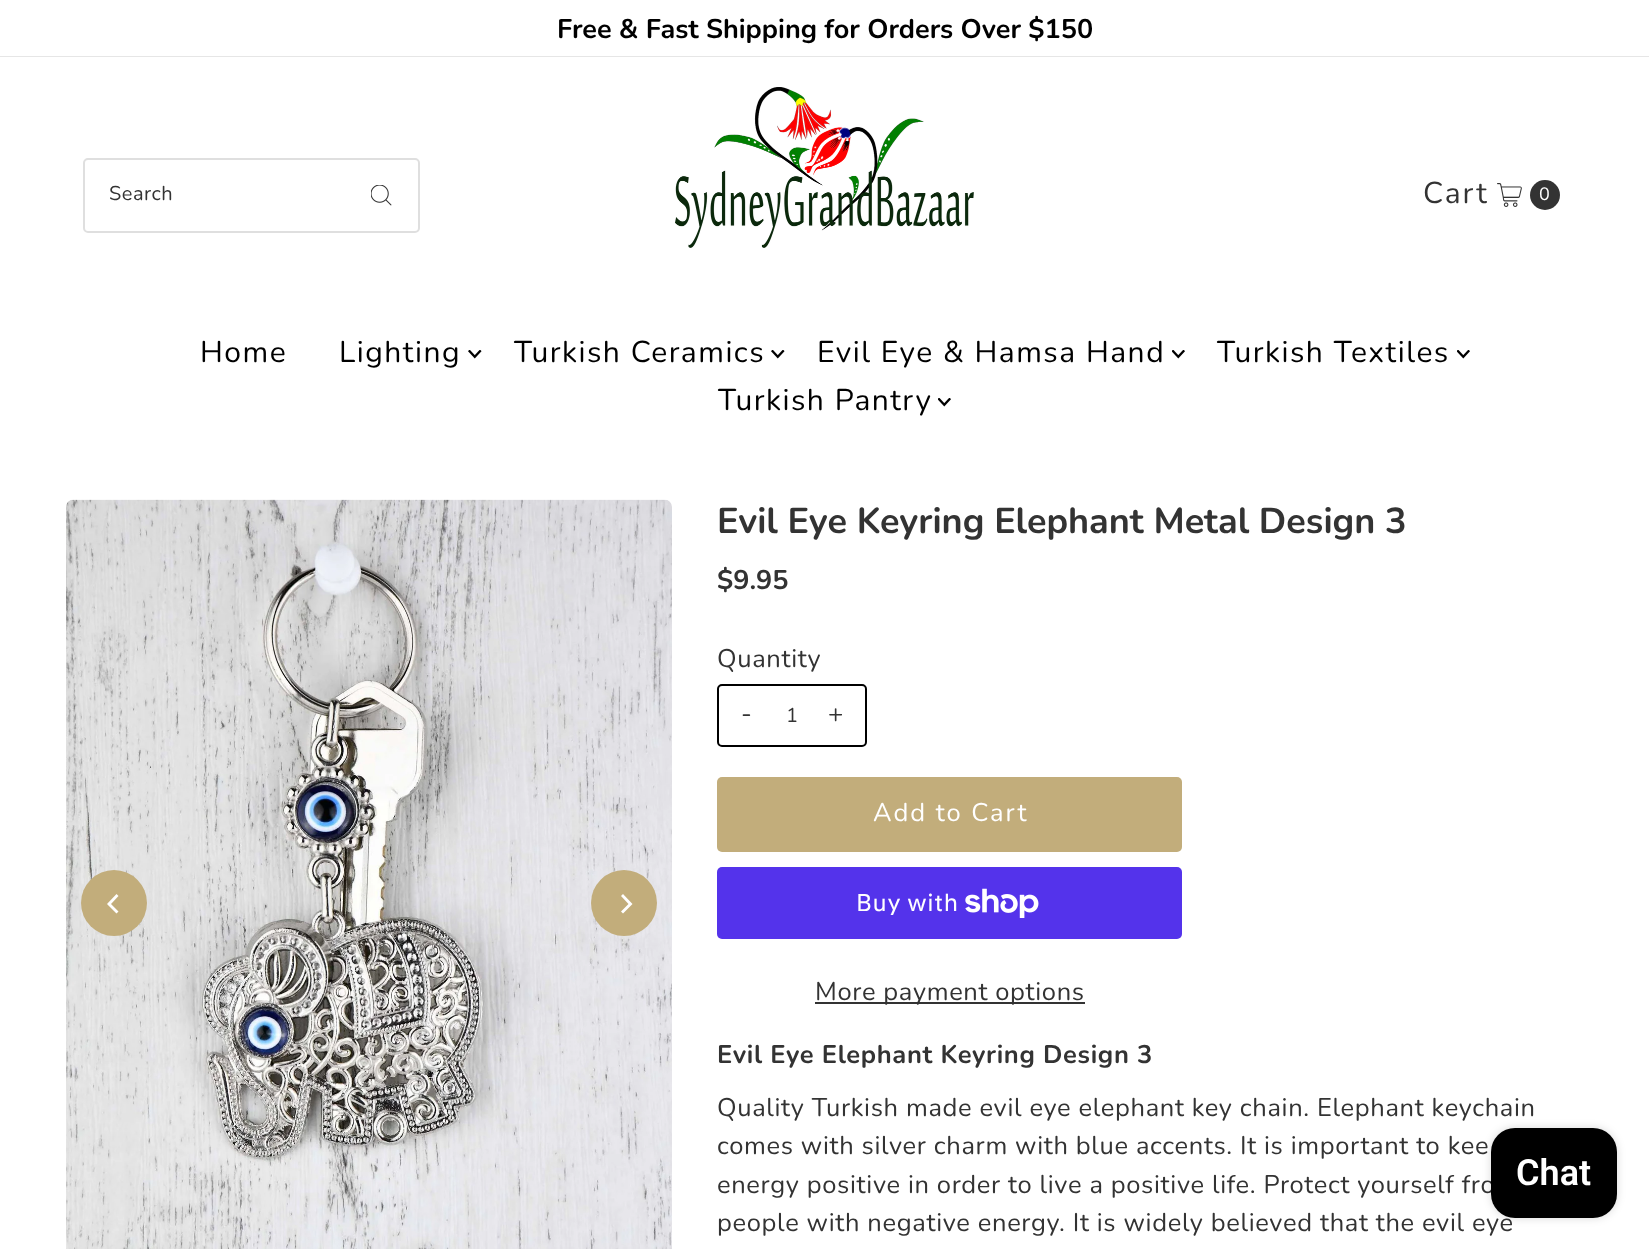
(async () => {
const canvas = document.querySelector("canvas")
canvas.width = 1649
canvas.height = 1249
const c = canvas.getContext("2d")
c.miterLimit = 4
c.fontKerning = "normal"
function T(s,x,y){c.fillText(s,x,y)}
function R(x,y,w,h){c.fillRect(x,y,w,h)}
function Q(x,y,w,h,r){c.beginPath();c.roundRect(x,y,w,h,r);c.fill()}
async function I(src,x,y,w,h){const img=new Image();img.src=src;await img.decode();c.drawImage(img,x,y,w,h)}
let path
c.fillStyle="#fff"
R(0,0,1649,1249)
c.font="bold 27px Nunito"
c.fillStyle="#000"
T("Free & Fast Shipping for Orders Over $150",557,38)
c.fillStyle="#e6e6e6"
R(0,56,1649,1)
c.beginPath()
c.roundRect(84,159,335,73,4)
c.strokeStyle="#dfdfdf"
c.lineWidth=2
c.stroke()
c.letterSpacing="0.5px"
c.font="20px Nunito"
c.fillStyle="#333"
T("Search",109,200)
await I("1.png",371,185,21,21)
await I("2.png",675,87,299,161)
c.letterSpacing="2px"
c.font="30px Nunito"
T("Cart",1423,203)
await I("3.png",1497,183,25,24)
c.beginPath()
c.arc(1545,195,15,0,7)
c.fill()
c.letterSpacing="0px"
c.font="18px Nunito"
c.fillStyle="#fff"
T("0",1539,200)
c.letterSpacing="1.5px"
c.font="30px Nunito"
c.fillStyle="#000"
T("Home",200,362)
T("Lighting",339,362)
await I("4.png",468,350,14,9)
T("Turkish Ceramics",514,362)
await I("4.png",771,350,14,9)
T("Evil Eye & Hamsa Hand",817,362)
await I("5.png",1172,350,13,9)
T("Turkish Textiles",1217,362)
await I("5.png",1457,350,13,9)
T("Turkish Pantry",718,410)
await I("5.png",938,398,13,9)
await I("6.png",66,499,606,750)
c.fillStyle="#c2ad7b"
c.beginPath()
c.arc(114,903,33,0,7)
c.fill()
c.fillStyle="#fff"
path = new Path2D("M107 904l9.5 9.5l2-2l-7.5-7.5l7.5-8l-2-2z")
c.fill(path)
c.fillStyle="#c2ad7b"
c.beginPath()
c.arc(624,903,33,0,7)
c.fill()
c.fillStyle="#fff"
path = new Path2D("M632.5 904l-9.5-10l-2 2l7.5 8l-7.5 7.5l2 2z")
c.fill(path)
c.letterSpacing="0px"
c.font="bold 36px Nunito"
c.fillStyle="#333"
T("Evil Eye Keyring Elephant Metal Design 3",717,533)
c.font="bold 27px Nunito"
T("$9.95",717,589)
c.letterSpacing="0.65px"
c.font="25.5px Nunito"
T("Quantity",717,667)
c.beginPath()
c.roundRect(718,685,148,61,4)
c.strokeStyle="#000"
c.stroke()
c.letterSpacing="2px"
T("-",741,722)
c.letterSpacing="0.5px"
c.font="20px Nunito"
T("1",786,722)
c.letterSpacing="2px"
c.font="25.5px Nunito"
T("+",828,722)
c.fillStyle="#c2ad7b"
Q(717,777,465,75,5)
c.fillStyle="#fff"
T("Add to Cart",873,821)
c.fillStyle="#5433eb"
Q(717,867,465,72,5)
c.letterSpacing="0.65px"
c.font="24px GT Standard"
c.fillStyle="#fff"
T("Buy with",856,911)
await I("7.png",965,888,74,30)
c.fillStyle="#333"
R(815,1002,270,2)
c.font="25.5px Nunito"
T("More payment options",815,1000)
c.font="bold 25.5px Nunito"
T("Evil Eye Elephant Keyring Design 3",717,1063)
c.font="25.5px Nunito"
T("Quality Turkish made evil eye elephant key chain. Elephant keychain",717,1116)
T("comes with silver charm with blue accents. It is important to kee",717,1154)
T("energy positive in order to live a positive life. Protect yourself fro",717,1193)
T("people with negative energy. It is widely believed that the evil eye",717,1231)
c.fillStyle="#00000026"
c.filter="blur(4px)"
c.beginPath()
c.roundRect(1491,1128,126,90,24)
c.fill()
c.filter="none"
c.fillStyle="#000"
Q(1491,1128,126,90,24)
c.letterSpacing="0px"
c.font="600 36px Roboto"
c.fillStyle="#fff"
T("Chat",1516,1185)
})()
